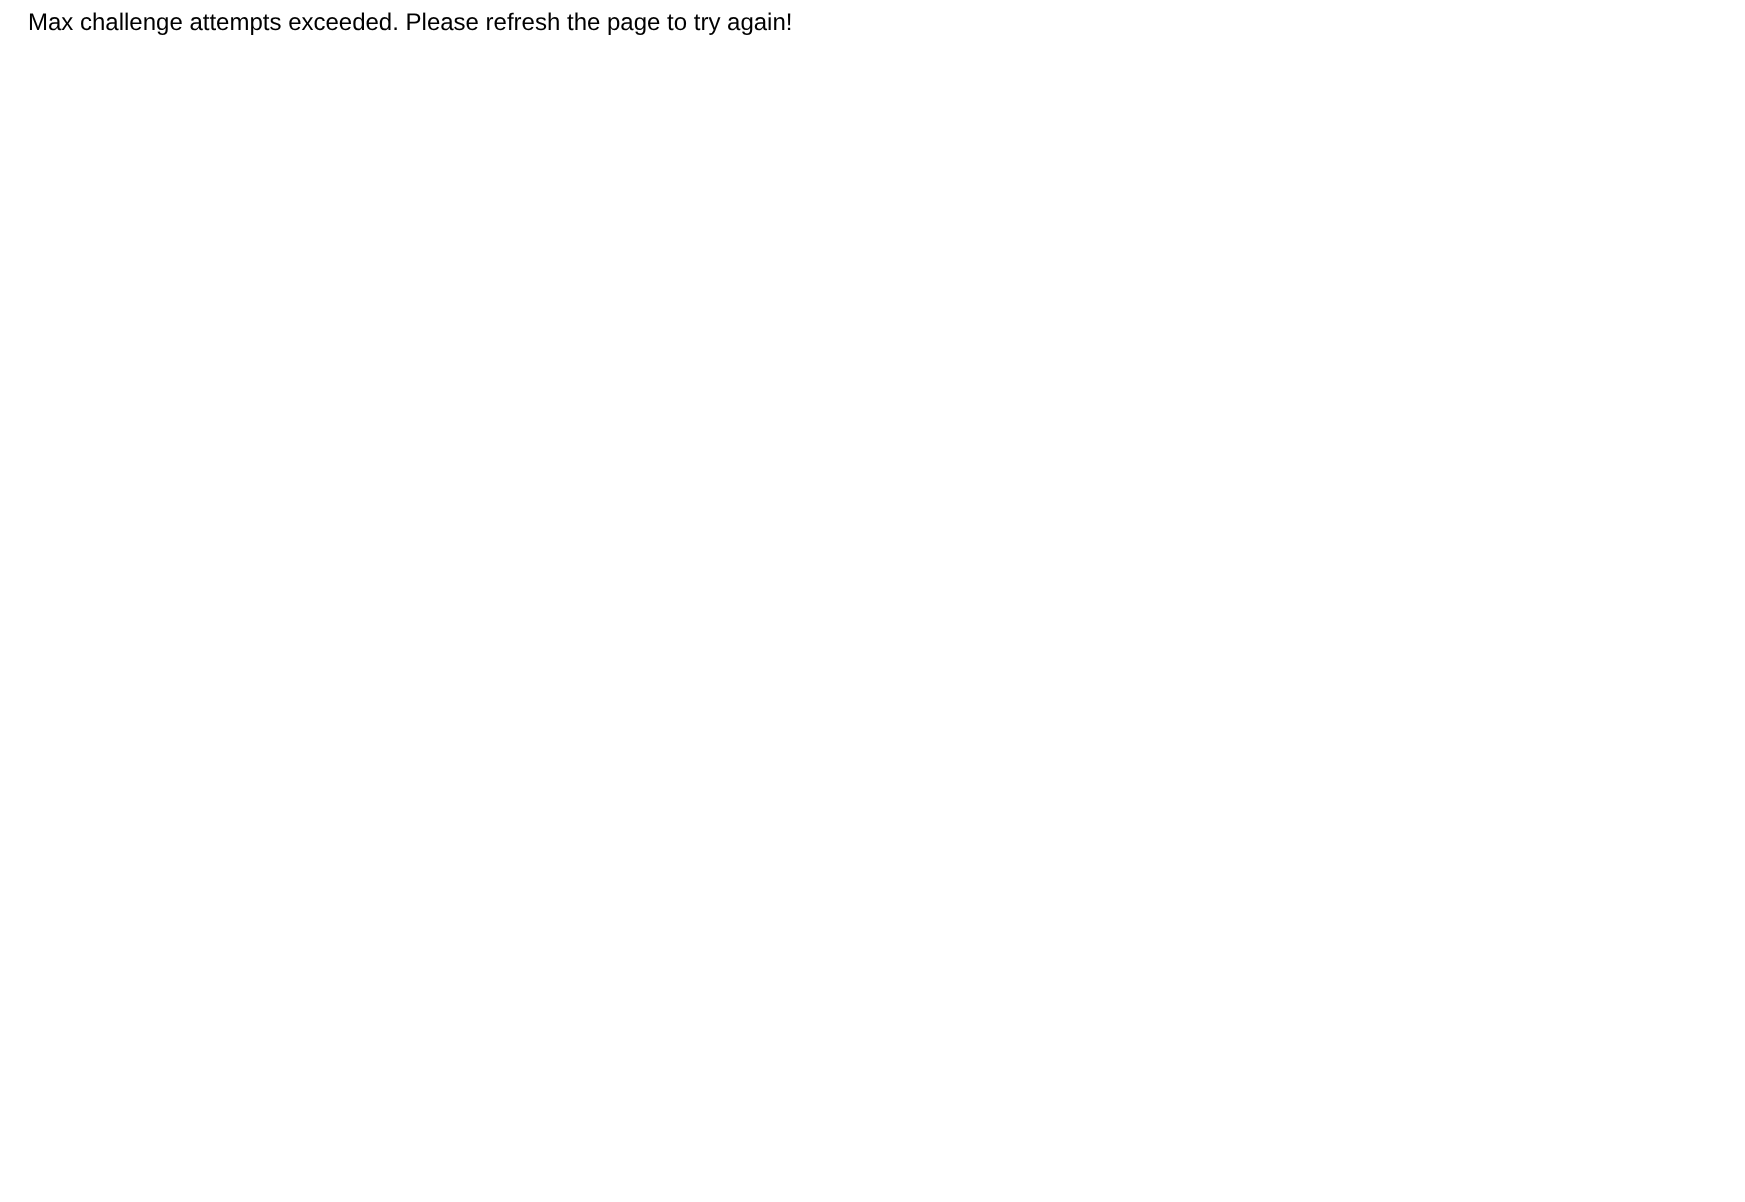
(async () => {
const canvas = document.querySelector("canvas")
canvas.width = 1745
canvas.height = 1202
const c = canvas.getContext("2d")
c.miterLimit = 4
c.fontKerning = "normal"
function T(s,x,y){c.fillText(s,x,y)}
function R(x,y,w,h){c.fillRect(x,y,w,h)}
c.fillStyle="#fff"
R(0,0,1745,1202)
c.font="24px Liberation Sans"
c.fillStyle="#000"
T("Max challenge attempts exceeded. Please refresh the page to try again!",28,30)
})()
